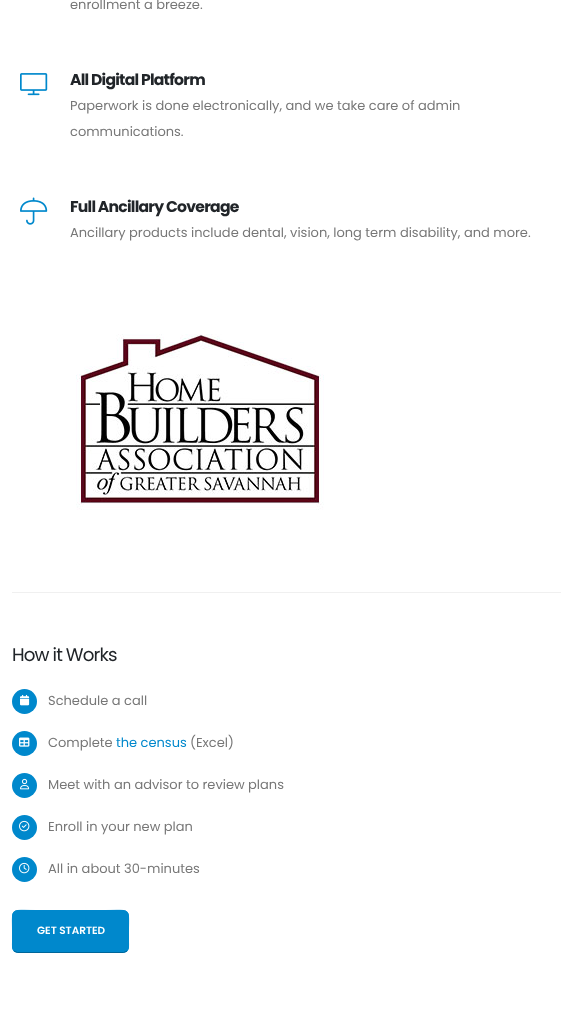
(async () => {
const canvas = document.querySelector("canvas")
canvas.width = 573
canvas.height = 1022
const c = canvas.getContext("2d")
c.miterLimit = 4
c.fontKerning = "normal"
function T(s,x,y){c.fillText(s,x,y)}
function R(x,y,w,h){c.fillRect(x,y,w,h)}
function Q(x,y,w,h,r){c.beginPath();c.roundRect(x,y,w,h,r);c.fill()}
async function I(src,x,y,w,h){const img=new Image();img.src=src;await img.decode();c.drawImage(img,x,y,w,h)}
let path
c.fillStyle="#fff"
R(0,0,573,1022)
c.font="13px Poppins"
c.fillStyle="#777"
T("enrollment a breeze.",70,9)
await I("1.png",20,73,28,23)
c.letterSpacing="-0.75px"
c.font="bold 15.6px Poppins"
c.fillStyle="#212529"
T("All Digital Platform",70,85)
c.letterSpacing="0px"
c.font="13px Poppins"
c.fillStyle="#777"
T("Paperwork is done electronically, and we take care of admin",70,110)
T("communications.",70,136)
await I("2.png",20,197,28,28)
c.letterSpacing="-0.75px"
c.font="bold 15.6px Poppins"
c.fillStyle="#212529"
T("Full Ancillary Coverage",70,212)
c.letterSpacing="0px"
c.font="13px Poppins"
c.fillStyle="#777"
T("Ancillary products include dental, vision, long term disability, and more.",70,237)
await I("3.png",76,334,248,176)
c.fillStyle="#f0f0f0"
R(12,592,549,1)
c.letterSpacing="-0.9px"
c.font="18.25px Poppins"
c.fillStyle="#212529"
T("How it Works",12,661)
c.fillStyle="#08c"
c.beginPath()
c.arc(24.5,701.5,12.5,0,7)
c.fill()
await I("4.png",20,694,10,12)
c.letterSpacing="0px"
c.font="13px Poppins"
c.fillStyle="#777"
T("Schedule a call",48,705)
c.fillStyle="#08c"
c.beginPath()
c.arc(24.5,743.5,12.5,0,7)
c.fill()
await I("5.png",19,737,11,10)
c.fillStyle="#777"
T("Complete",48,747)
c.fillStyle="#08c"
T("the census",116,747)
c.fillStyle="#777"
T("(Excel)",190,747)
c.fillStyle="#08c"
c.beginPath()
c.arc(24.5,785.5,12.5,0,7)
c.fill()
await I("6.png",20,778,10,12)
c.fillStyle="#777"
T("Meet with an advisor to review plans",48,789)
c.fillStyle="#08c"
c.beginPath()
c.arc(24.5,827.5,12.5,0,7)
c.fill()
await I("7.png",19,820,11,12)
c.fillStyle="#777"
T("Enroll in your new plan",48,831)
c.fillStyle="#08c"
c.beginPath()
c.arc(24.5,869.5,12.5,0,7)
c.fill()
await I("8.png",19,862,11,12)
c.fillStyle="#777"
T("All in about 30-minutes",48,873)
c.fillStyle="#08c"
Q(12,910,117,43,6)
path = new Path2D("M127 951l-3.5 1.5h-106l-3.5-1.5")
c.strokeStyle="#069"
c.stroke(path)
path = new Path2D("M14 951c-2-2.5-1.5-6-1.5-9v-10.5c0-24.5-3-21 23-21h70c26 0 23-3.5 23 21v10.5c0 3 .5 6.5-1.5 9")
c.strokeStyle="#08c"
c.stroke(path)
c.font="600 10.5px Poppins"
c.fillStyle="#fff"
T("GET STARTED",37,934)
})()
